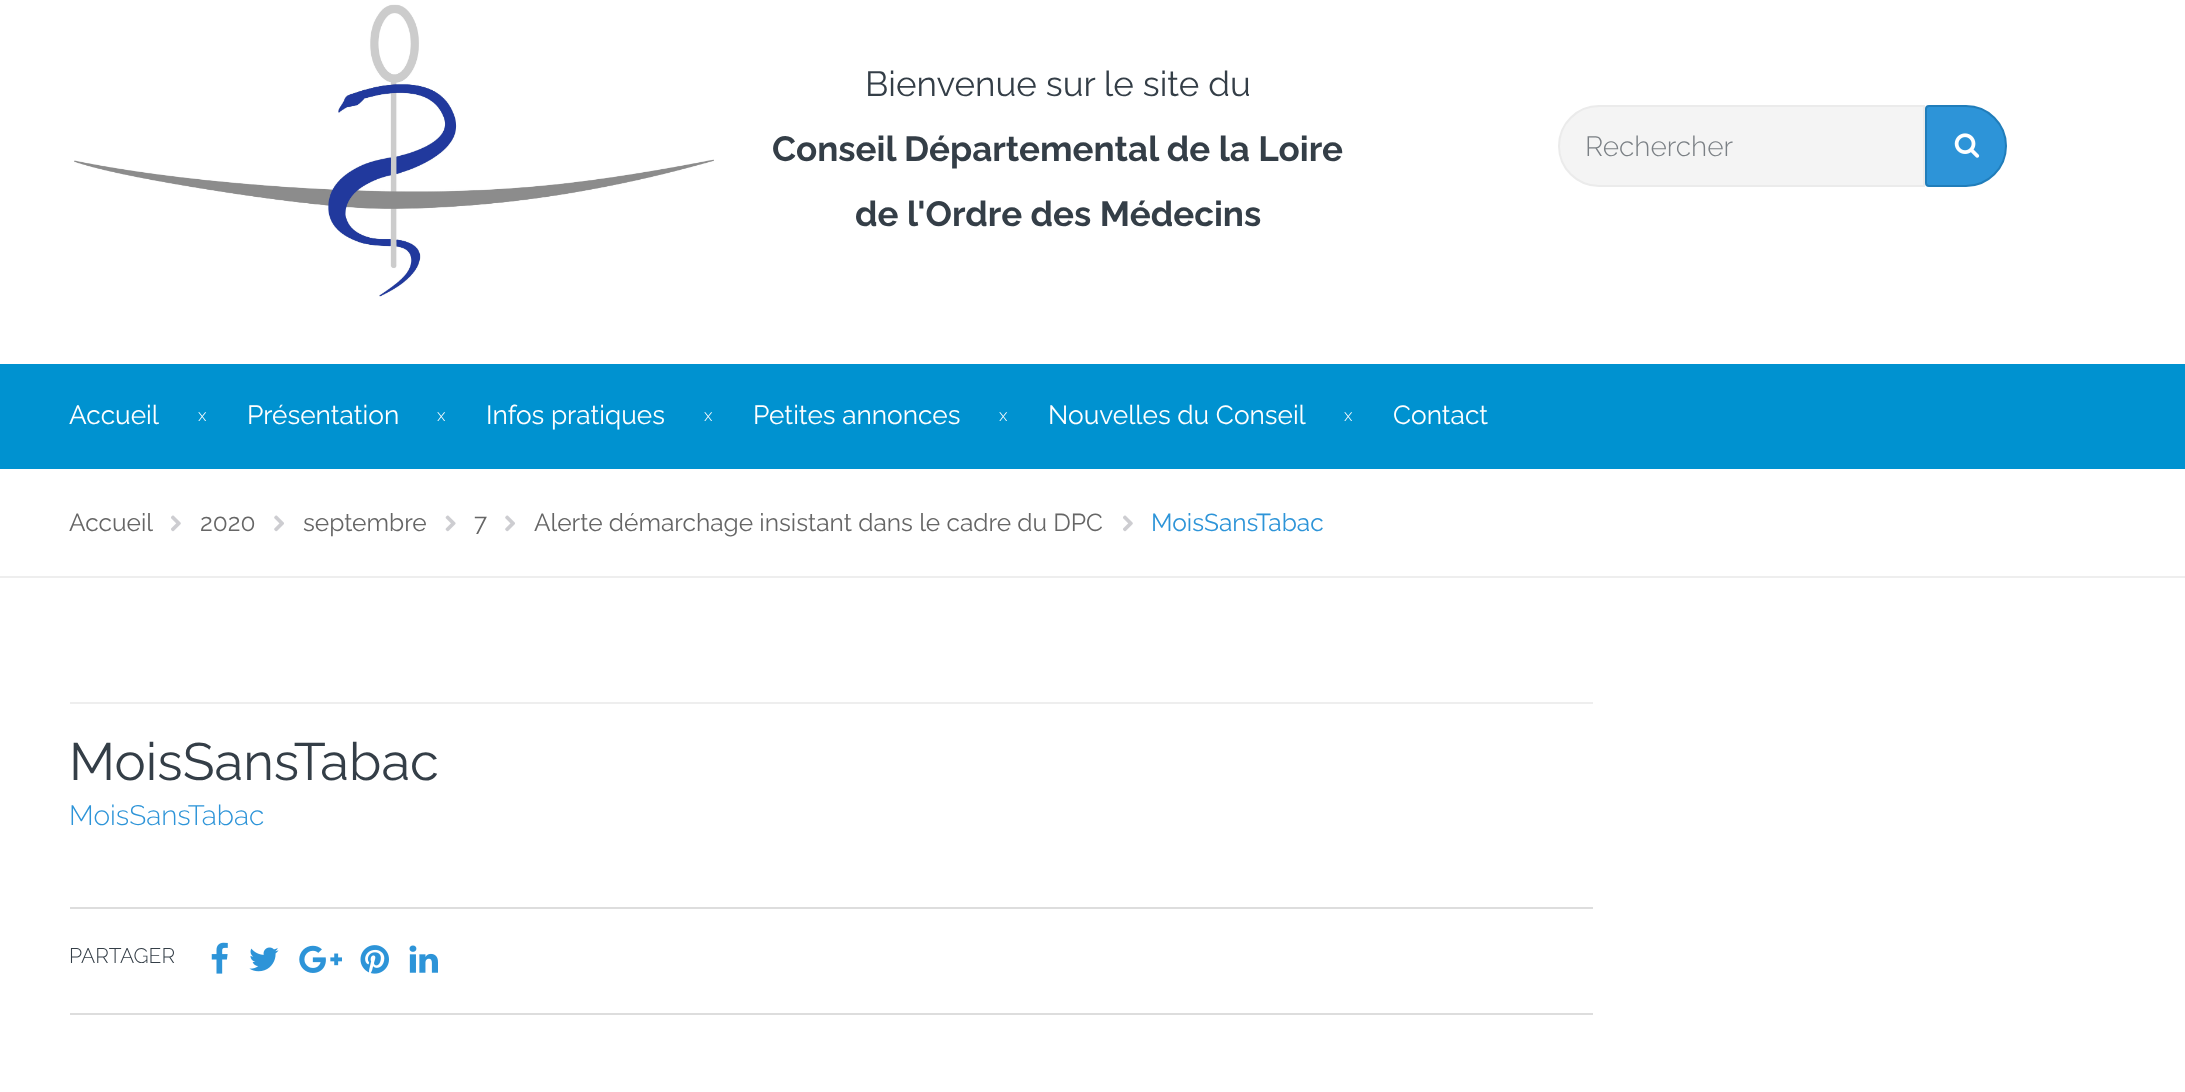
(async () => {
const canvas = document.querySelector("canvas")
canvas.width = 2185
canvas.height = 1092
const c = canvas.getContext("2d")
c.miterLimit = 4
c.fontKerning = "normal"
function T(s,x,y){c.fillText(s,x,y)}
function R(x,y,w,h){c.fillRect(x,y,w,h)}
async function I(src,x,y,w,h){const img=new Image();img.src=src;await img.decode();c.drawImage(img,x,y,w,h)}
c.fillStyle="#fff"
R(0,0,2185,1092)
await I("1.png",74,4,640,293)
c.font="35px Raleway"
c.fillStyle="#343e47"
T("Bienvenue sur le site du",865,96)
c.font="bold 35px Raleway"
T("Conseil Départemental de la Loire",772,161)
T("de l'Ordre des Médecins",855,226)
c.fillStyle="#f4f4f4"
c.beginPath()
c.roundRect(1559,106,365,80,[40,0,0,40])
c.fill()
c.strokeStyle="#ebebeb"
c.lineWidth=2
c.stroke()
c.font="300 28px Raleway"
c.fillStyle="#7b8085"
T("Rechercher",1585,156)
c.fillStyle="#2d94d8"
c.beginPath()
c.roundRect(1926,106,80,80,[3,40,40,3])
c.fill()
c.strokeStyle="#207dba"
c.stroke()
await I("2.png",1954,133,26,25)
c.fillStyle="#0092d0"
R(0,364,2185,105)
c.font="26.25px Raleway"
c.fillStyle="#fff"
T("Accueil",69,424)
c.letterSpacing="2px"
c.font="300 17px Raleway"
T("x",198,421)
c.letterSpacing="0px"
c.font="26.25px Raleway"
T("Présentation",247,424)
c.letterSpacing="2px"
c.font="300 17px Raleway"
T("x",437,421)
c.letterSpacing="0px"
c.font="26.25px Raleway"
T("Infos pratiques",486,424)
c.letterSpacing="2px"
c.font="300 17px Raleway"
T("x",704,421)
c.letterSpacing="0px"
c.font="26.25px Raleway"
T("Petites annonces",753,424)
c.letterSpacing="2px"
c.font="300 17px Raleway"
T("x",999,421)
c.letterSpacing="0px"
c.font="26.25px Raleway"
T("Nouvelles du Conseil",1048,424)
c.letterSpacing="2px"
c.font="300 17px Raleway"
T("x",1344,421)
c.letterSpacing="0px"
c.font="26.25px Raleway"
T("Contact",1393,424)
c.fillStyle="#eee"
R(0,576,2185,2)
c.font="24.5px Raleway"
c.fillStyle="#666"
T("Accueil",69,531)
await I("3.png",171,515,10,17)
T("2020",200,531)
await I("4.png",274,515,10,17)
T("septembre",303,531)
await I("5.png",445,515,11,17)
T("7",474,531)
await I("4.png",505,515,10,17)
T("Alerte démarchage insistant dans le cadre du DPC",534,531)
await I("3.png",1123,515,10,17)
c.fillStyle="#2d94d8"
T("MoisSansTabac",1151,531)
c.fillStyle="#eee"
R(70,702,1523,2)
c.font="52.5px Raleway"
c.fillStyle="#343e47"
T("MoisSansTabac",69,780)
c.font="300 28px Raleway"
c.fillStyle="#2d94d8"
T("MoisSansTabac",69,825)
c.fillStyle="#ddd"
R(70,907,1523,2)
R(70,1013,1523,2)
c.font="300 21px Raleway"
c.fillStyle="#343e47"
T("PARTAGER",69,963)
await I("6.png",211,942,17,32)
await I("7.png",249,947,30,25)
await I("8.png",299,945,43,28)
await I("9.png",360,945,29,29)
await I("10.png",409,945,29,28)
})()
